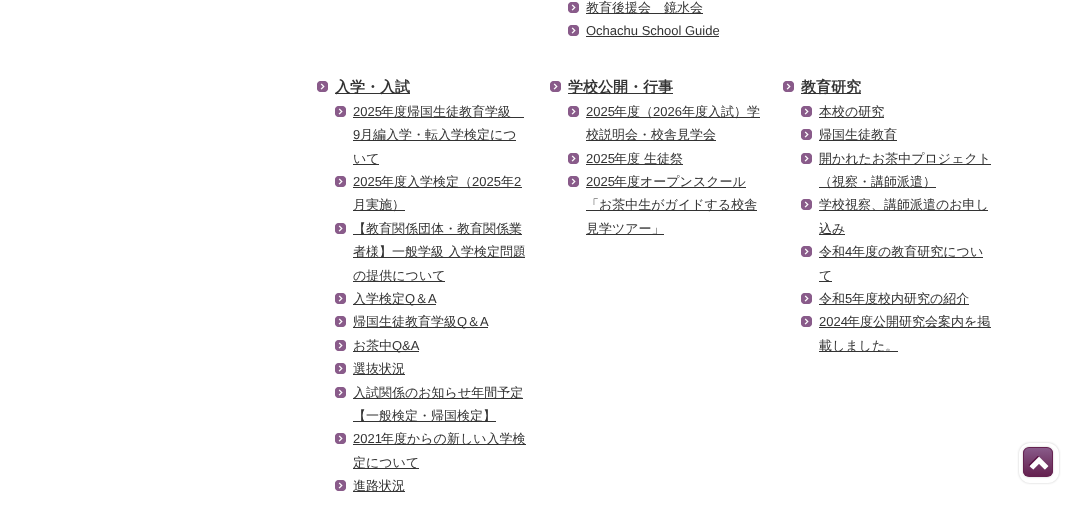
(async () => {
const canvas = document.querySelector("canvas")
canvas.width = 1073
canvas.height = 512
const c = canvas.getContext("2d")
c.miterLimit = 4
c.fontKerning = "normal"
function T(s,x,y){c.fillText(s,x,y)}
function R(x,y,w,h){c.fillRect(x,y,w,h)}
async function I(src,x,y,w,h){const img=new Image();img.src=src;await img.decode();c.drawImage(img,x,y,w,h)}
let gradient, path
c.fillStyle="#fff"
R(0,0,1073,512)
await I("1.png",568,2,11,11)
c.fillStyle="#333"
R(586,13,117,1)
c.font="500 13px WenQuanYi Zen Hei"
T("教育後援会　鏡水会",586,12)
await I("1.png",568,25,11,11)
c.font="13px Liberation Sans"
T("Ochachu School Guide",586,35)
R(586,36,133,1)
await I("1.png",317,81,11,11)
R(335,93,75,1)
c.font="bold 15px WenQuanYi Zen Hei"
T("入学・入試",335,92)
await I("1.png",335,106,11,11)
c.font="13px Liberation Sans"
T("2025",353,116)
R(353,117,171,1)
c.font="500 13px WenQuanYi Zen Hei"
T("年度帰国生徒教育学級",381,116)
c.font="13px Liberation Sans"
T("9",353,139)
R(353,140,163,1)
c.font="500 13px WenQuanYi Zen Hei"
T("月編入学・転入学検定につ",360,139)
R(353,164,26,1)
T("いて",353,163)
await I("1.png",335,176,11,11)
c.font="13px Liberation Sans"
T("2025",353,186)
R(353,187,169,1)
c.font="500 13px WenQuanYi Zen Hei"
T("年度入学検定（",381,186)
c.font="13px Liberation Sans"
T("2025",472,186)
c.font="500 13px WenQuanYi Zen Hei"
T("年",501,186)
c.font="13px Liberation Sans"
T("2",514,186)
R(353,210,52,1)
c.font="500 13px WenQuanYi Zen Hei"
T("月実施）",353,209)
await I("1.png",335,223,11,11)
R(353,234,169,1)
T("【教育関係団体・教育関係業",353,233)
R(353,257,172,1)
T("者様】一般学級 入学検定問題",353,256)
R(353,281,92,1)
T("の提供について",353,280)
await I("1.png",335,293,11,11)
R(353,304,83,1)
T("入学検定",353,303)
c.font="13px Liberation Sans"
T("Q",405,303)
c.font="500 13px WenQuanYi Zen Hei"
T("＆",415,303)
c.font="13px Liberation Sans"
T("A",428,303)
await I("1.png",335,316,11,11)
R(353,327,135,1)
c.font="500 13px WenQuanYi Zen Hei"
T("帰国生徒教育学級",353,326)
c.font="13px Liberation Sans"
T("Q",457,326)
c.font="500 13px WenQuanYi Zen Hei"
T("＆",467,326)
c.font="13px Liberation Sans"
T("A",480,326)
await I("1.png",335,340,11,11)
R(353,351,66,1)
c.font="500 13px WenQuanYi Zen Hei"
T("お茶中",353,350)
c.font="13px Liberation Sans"
T("Q&A",392,350)
await I("1.png",335,363,11,11)
R(353,374,52,1)
c.font="500 13px WenQuanYi Zen Hei"
T("選抜状況",353,373)
await I("1.png",335,387,11,11)
R(353,398,170,1)
T("入試関係のお知らせ年間予定",353,397)
R(353,421,143,1)
T("【一般検定・帰国検定】",353,420)
await I("1.png",335,433,11,11)
c.font="13px Liberation Sans"
T("2021",353,443)
R(353,444,173,1)
c.font="500 13px WenQuanYi Zen Hei"
T("年度からの新しい入学検",381,443)
R(353,468,66,1)
T("定について",353,467)
await I("1.png",335,480,11,11)
R(353,491,52,1)
T("進路状況",353,490)
await I("1.png",550,81,11,11)
R(568,93,105,1)
c.font="bold 15px WenQuanYi Zen Hei"
T("学校公開・行事",568,92)
await I("1.png",568,106,11,11)
c.font="13px Liberation Sans"
T("2025",586,116)
R(586,117,174,1)
c.font="500 13px WenQuanYi Zen Hei"
T("年度（",614,116)
c.font="13px Liberation Sans"
T("2026",653,116)
c.font="500 13px WenQuanYi Zen Hei"
T("年度入試）学",682,116)
R(586,140,130,1)
T("校説明会・校舎見学会",586,139)
await I("1.png",568,153,11,11)
c.font="13px Liberation Sans"
T("2025",586,163)
R(586,164,97,1)
c.font="500 13px WenQuanYi Zen Hei"
T("年度 生徒祭",614,163)
await I("1.png",568,176,11,11)
c.font="13px Liberation Sans"
T("2025",586,186)
R(586,187,160,1)
c.font="500 13px WenQuanYi Zen Hei"
T("年度オープンスクール",614,186)
R(586,210,171,1)
T("「お茶中生がガイドする校舎",586,209)
R(586,234,78,1)
T("見学ツアー」",586,233)
await I("1.png",783,81,11,11)
R(801,93,60,1)
c.font="bold 15px WenQuanYi Zen Hei"
T("教育研究",801,92)
await I("1.png",801,106,11,11)
R(819,117,65,1)
c.font="500 13px WenQuanYi Zen Hei"
T("本校の研究",819,116)
await I("1.png",801,129,11,11)
R(819,140,78,1)
T("帰国生徒教育",819,139)
await I("1.png",801,153,11,11)
R(819,164,172,1)
T("開かれたお茶中プロジェクト",819,163)
R(819,187,117,1)
T("（視察・講師派遣）",819,186)
await I("1.png",801,199,11,11)
R(819,210,169,1)
T("学校視察、講師派遣のお申し",819,209)
R(819,234,26,1)
T("込み",819,233)
await I("1.png",801,246,11,11)
R(819,257,164,1)
T("令和",819,256)
c.font="13px Liberation Sans"
T("4",845,256)
c.font="500 13px WenQuanYi Zen Hei"
T("年度の教育研究につい",852,256)
R(819,281,13,1)
T("て",819,280)
await I("1.png",801,293,11,11)
R(819,304,150,1)
T("令和",819,303)
c.font="13px Liberation Sans"
T("5",845,303)
c.font="500 13px WenQuanYi Zen Hei"
T("年度校内研究の紹介",852,303)
await I("1.png",801,316,11,11)
c.font="13px Liberation Sans"
T("2024",819,326)
R(819,327,172,1)
c.font="500 13px WenQuanYi Zen Hei"
T("年度公開研究会案内を掲",847,326)
R(819,351,79,1)
T("載しました。",819,350)
c.save()
path = new Path2D("M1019 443h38v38h-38zm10 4h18c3.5 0 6 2.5 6 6v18c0 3.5-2.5 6-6 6h-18c-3.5 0-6-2.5-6-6v-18c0-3.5 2.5-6 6-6z")
c.clip(path,"evenodd")
c.fillStyle="#00000033"
c.filter="blur(1px)"
c.beginPath()
c.roundRect(1023,447,30,30,6)
c.fill()
c.filter="none"
c.restore()
c.save()
c.beginPath()
c.roundRect(1023,447,30,30,6)
c.clip()
gradient = c.createLinearGradient(1024,448,1024,476)
gradient.addColorStop(0,"#895b8a")
gradient.addColorStop(1,"#540a3de6")
c.fillStyle = gradient
R(1023,448,30,28)
c.restore()
c.beginPath()
c.roundRect(1023.5,447.5,29,29,5.5)
c.strokeStyle="#652250"
c.stroke()
c.save()
path = new Path2D("M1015 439h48v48h-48zm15 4h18c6 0 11 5 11 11v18c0 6-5 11-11 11h-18c-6 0-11-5-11-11v-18c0-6 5-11 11-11z")
c.clip(path,"evenodd")
c.fillStyle="#00000033"
c.filter="blur(1px)"
c.beginPath()
c.roundRect(1019,443,40,40,11)
c.fill()
c.filter="none"
c.restore()
await I("2.png",1028,456,21,14)
})()
